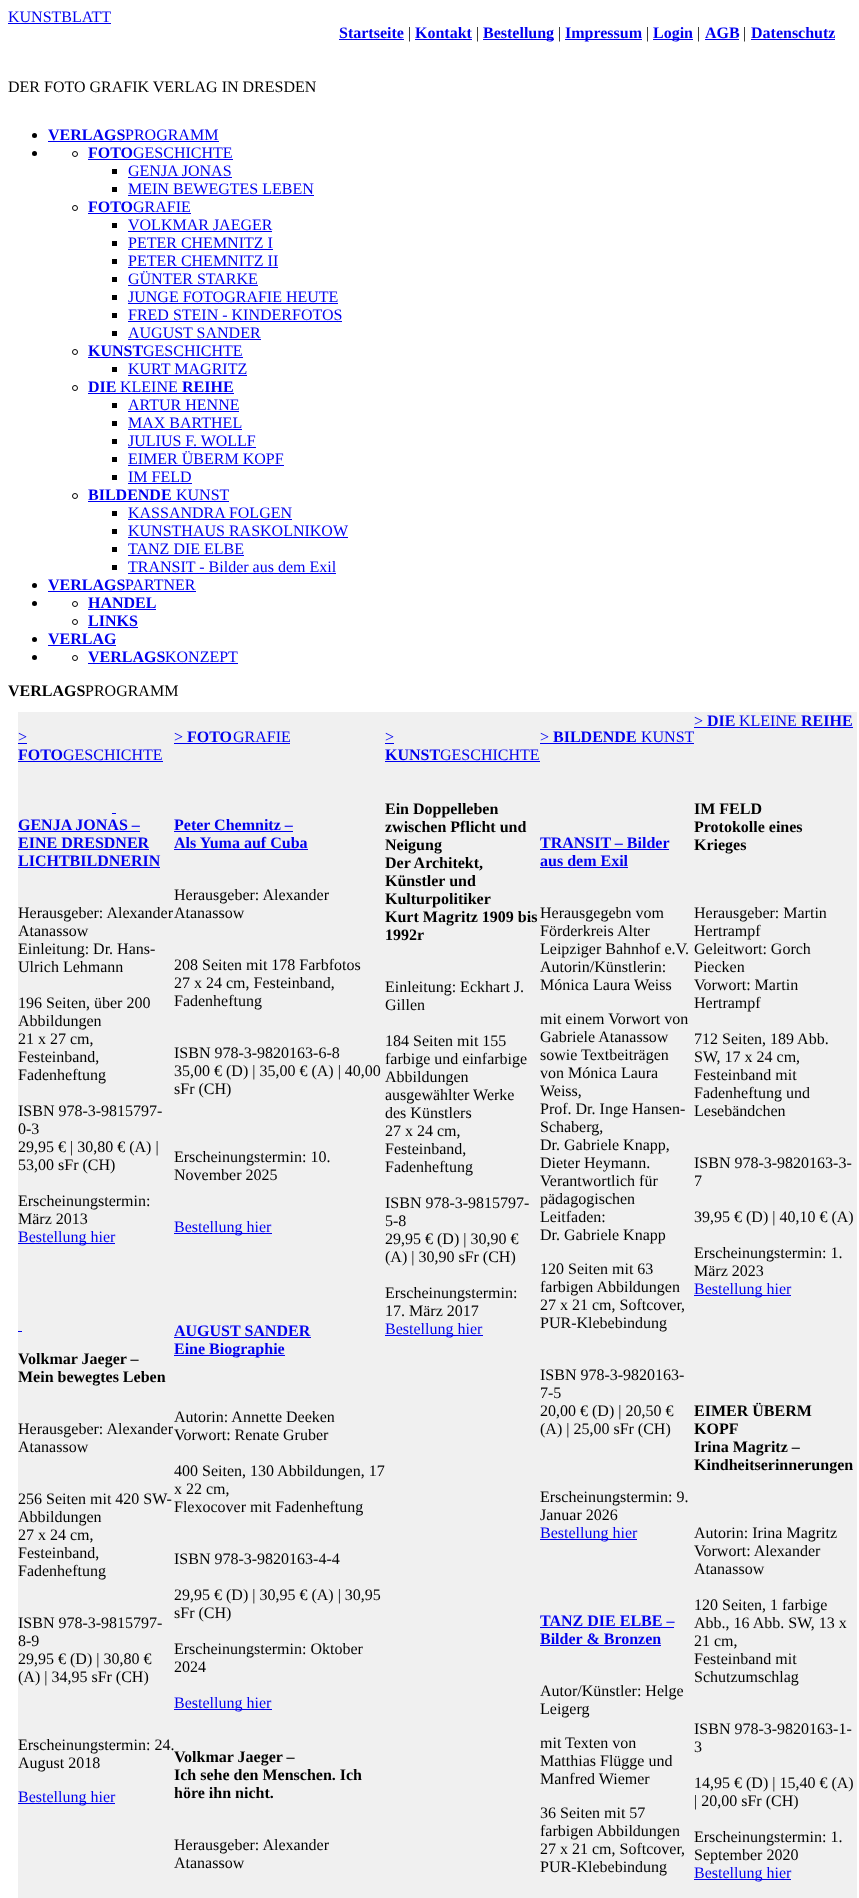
(async () => {
const canvas = document.querySelector("canvas")
canvas.width = 859
canvas.height = 1898
const c = canvas.getContext("2d")
c.miterLimit = 4
c.fontKerning = "normal"
function T(s,x,y){c.fillText(s,x,y)}
function R(x,y,w,h){c.fillRect(x,y,w,h)}
c.fillStyle="#fff"
R(0,0,859,1898)
c.font="16px Liberation Serif"
c.fillStyle="#00e"
T("KUNSTBLATT",8,22)
R(8,23,103,1)
c.font="bold 16px Liberation Serif"
T("Startseite",339,38)
R(339,39,65,1)
c.font="16px Liberation Serif"
c.fillStyle="#000"
T("|",408,38)
c.font="bold 16px Liberation Serif"
c.fillStyle="#00e"
T("Kontakt",415,38)
R(415,39,57,1)
c.font="16px Liberation Serif"
c.fillStyle="#000"
T("|",476,38)
c.fillStyle="#00e"
R(483,39,71,1)
c.font="bold 16px Liberation Serif"
T("Bestellung",483,38)
c.font="16px Liberation Serif"
c.fillStyle="#000"
T("|",558,38)
c.fillStyle="#00e"
R(565,39,77,1)
c.font="bold 16px Liberation Serif"
T("Impressum",565,38)
c.font="16px Liberation Serif"
c.fillStyle="#000"
T("|",646,38)
c.fillStyle="#00e"
R(653,39,40,1)
c.font="bold 16px Liberation Serif"
T("Login",653,38)
c.font="16px Liberation Serif"
c.fillStyle="#000"
T("|",697,38)
c.font="bold 16px Liberation Serif"
c.fillStyle="#00e"
T("AGB",705,38)
R(705,39,34,1)
c.font="16px Liberation Serif"
c.fillStyle="#000"
T("|",743,38)
c.font="bold 16px Liberation Serif"
c.fillStyle="#00e"
T("Datenschutz",751,38)
R(751,39,84,1)
c.font="16px Liberation Serif"
c.fillStyle="#000"
T("DER FOTO GRAFIK VERLAG IN DRESDEN",8,92)
c.beginPath()
c.arc(34.5,135.5,2.5,0,7)
c.fill()
c.font="bold 16px Liberation Serif"
c.fillStyle="#00e"
T("VERLAGS",48,140)
R(48,141,171,1)
c.font="16px Liberation Serif"
T("PROGRAMM",125,140)
c.fillStyle="#000"
c.beginPath()
c.arc(34.5,153.5,2.5,0,7)
c.fill()
c.beginPath()
c.arc(75,154,2.5,0,7)
c.strokeStyle="#000"
c.stroke()
c.font="bold 16px Liberation Serif"
c.fillStyle="#00e"
T("FOTO",88,158)
R(88,159,145,1)
c.font="16px Liberation Serif"
T("GESCHICHTE",133,158)
c.fillStyle="#000"
R(112,169,5,5)
c.fillStyle="#00e"
T("GENJA JONAS",128,176)
R(128,177,104,1)
c.fillStyle="#000"
R(112,187,5,5)
c.fillStyle="#00e"
T("MEIN BEWEGTES LEBEN",128,194)
R(128,195,186,1)
c.beginPath()
c.arc(75,208,2.5,0,7)
c.stroke()
c.font="bold 16px Liberation Serif"
T("FOTO",88,212)
R(88,213,103,1)
c.font="16px Liberation Serif"
T("GRAFIE",133,212)
c.fillStyle="#000"
R(112,223,5,5)
c.fillStyle="#00e"
T("VOLKMAR JAEGER",128,230)
R(128,231,144,1)
c.fillStyle="#000"
R(112,241,5,5)
c.fillStyle="#00e"
T("PETER CHEMNITZ I",128,248)
R(128,249,145,1)
c.fillStyle="#000"
R(112,259,5,5)
c.fillStyle="#00e"
T("PETER CHEMNITZ II",128,266)
R(128,267,150,1)
c.fillStyle="#000"
R(112,277,5,5)
c.fillStyle="#00e"
T("GÜNTER STARKE",128,284)
R(128,285,130,1)
c.fillStyle="#000"
R(112,295,5,5)
c.fillStyle="#00e"
T("JUNGE FOTOGRAFIE HEUTE",128,302)
R(128,303,210,1)
c.fillStyle="#000"
R(112,313,5,5)
c.fillStyle="#00e"
T("FRED STEIN - KINDERFOTOS",128,320)
R(128,321,214,1)
c.fillStyle="#000"
R(112,331,5,5)
c.fillStyle="#00e"
T("AUGUST SANDER",128,338)
R(128,339,133,1)
c.beginPath()
c.arc(75,352,2.5,0,7)
c.stroke()
c.font="bold 16px Liberation Serif"
T("KUNST",88,356)
R(88,357,155,1)
c.font="16px Liberation Serif"
T("GESCHICHTE",143,356)
c.fillStyle="#000"
R(112,367,5,5)
c.fillStyle="#00e"
T("KURT MAGRITZ",128,374)
R(128,375,119,1)
c.beginPath()
c.arc(75,388,2.5,0,7)
c.stroke()
c.font="bold 16px Liberation Serif"
T("DIE",88,392)
R(88,393,146,1)
c.font="16px Liberation Serif"
T("KLEINE",120,392)
c.font="bold 16px Liberation Serif"
T("REIHE",182,392)
c.fillStyle="#000"
R(112,403,5,5)
c.font="16px Liberation Serif"
c.fillStyle="#00e"
T("ARTUR HENNE",128,410)
R(128,411,111,1)
c.fillStyle="#000"
R(112,421,5,5)
c.fillStyle="#00e"
T("MAX BARTHEL",128,428)
R(128,429,114,1)
c.fillStyle="#000"
R(112,439,5,5)
c.fillStyle="#00e"
T("JULIUS F. WOLLF",128,446)
R(128,447,128,1)
c.fillStyle="#000"
R(112,457,5,5)
c.fillStyle="#00e"
T("EIMER ÜBERM KOPF",128,464)
R(128,465,156,1)
c.fillStyle="#000"
R(112,475,5,5)
c.fillStyle="#00e"
T("IM FELD",128,482)
R(128,483,64,1)
c.beginPath()
c.arc(75,496,2.5,0,7)
c.stroke()
c.font="bold 16px Liberation Serif"
T("BILDENDE",88,500)
R(88,501,141,1)
c.font="16px Liberation Serif"
T("KUNST",176,500)
c.fillStyle="#000"
R(112,511,5,5)
c.fillStyle="#00e"
T("KASSANDRA FOLGEN",128,518)
R(128,519,164,1)
c.fillStyle="#000"
R(112,529,5,5)
c.fillStyle="#00e"
T("KUNSTHAUS RASKOLNIKOW",128,536)
R(128,537,220,1)
c.fillStyle="#000"
R(112,547,5,5)
c.fillStyle="#00e"
T("TANZ DIE ELBE",128,554)
R(128,555,116,1)
c.fillStyle="#000"
R(112,565,5,5)
c.fillStyle="#00e"
T("TRANSIT - Bilder aus dem Exil",128,572)
R(128,573,208,1)
c.fillStyle="#000"
c.beginPath()
c.arc(34.5,585.5,2.5,0,7)
c.fill()
c.font="bold 16px Liberation Serif"
c.fillStyle="#00e"
T("VERLAGS",48,590)
R(48,591,148,1)
c.font="16px Liberation Serif"
T("PARTNER",125,590)
c.fillStyle="#000"
c.beginPath()
c.arc(34.5,603.5,2.5,0,7)
c.fill()
c.beginPath()
c.arc(75,604,2.5,0,7)
c.stroke()
c.font="bold 16px Liberation Serif"
c.fillStyle="#00e"
T("HANDEL",88,608)
R(88,609,68,1)
c.beginPath()
c.arc(75,622,2.5,0,7)
c.stroke()
T("LINKS",88,626)
R(88,627,50,1)
c.fillStyle="#000"
c.beginPath()
c.arc(34.5,639.5,2.5,0,7)
c.fill()
c.fillStyle="#00e"
T("VERLAG",48,644)
R(48,645,68,1)
c.fillStyle="#000"
c.beginPath()
c.arc(34.5,657.5,2.5,0,7)
c.fill()
c.beginPath()
c.arc(75,658,2.5,0,7)
c.stroke()
c.fillStyle="#00e"
T("VERLAGS",88,662)
R(88,663,150,1)
c.font="16px Liberation Serif"
T("KONZEPT",165,662)
c.font="bold 16px Liberation Serif"
c.fillStyle="#000"
T("VERLAGS",8,696)
c.font="16px Liberation Serif"
T("PROGRAMM",85,696)
c.fillStyle="#f0f0f0"
R(18,712,839,1186)
c.fillStyle="#00e"
T(">",18,742)
R(18,743,9,1)
c.font="bold 16px Liberation Serif"
T("FOTO",18,760)
R(18,761,145,1)
c.font="16px Liberation Serif"
T("GESCHICHTE",63,760)
R(112,813,4,1)
c.font="bold 16px Liberation Serif"
T("GENJA JONAS –",18,830)
R(18,831,122,1)
T("EINE DRESDNER",18,848)
R(18,849,131,1)
T("LICHTBILDNERIN",18,866)
R(18,867,142,1)
c.font="16px Liberation Serif"
c.fillStyle="#000"
T("Herausgeber: Alexander",18,918)
T("Atanassow",18,936)
T("Einleitung: Dr. Hans-",18,954)
T("Ulrich Lehmann",18,972)
T("196 Seiten, über 200",18,1008)
T("Abbildungen",18,1026)
T("21 x 27 cm,",18,1044)
T("Festeinband,",18,1062)
T("Fadenheftung",18,1080)
T("ISBN 978-3-9815797-",18,1116)
T("0-3",18,1134)
T("29,95 € | 30,80 € (A) |",18,1152)
T("53,00 sFr (CH)",18,1170)
T("Erscheinungstermin:",18,1206)
T("März 2013",18,1224)
c.fillStyle="#00e"
R(18,1243,97,1)
T("Bestellung hier",18,1242)
R(18,1331,4,1)
c.font="bold 16px Liberation Serif"
c.fillStyle="#000"
T("Volkmar Jaeger –",18,1364)
T("Mein bewegtes Leben",18,1382)
c.font="16px Liberation Serif"
T("Herausgeber: Alexander",18,1434)
T("Atanassow",18,1452)
T("256 Seiten mit 420 SW-",18,1504)
T("Abbildungen",18,1522)
T("27 x 24 cm,",18,1540)
T("Festeinband,",18,1558)
T("Fadenheftung",18,1576)
T("ISBN 978-3-9815797-",18,1628)
T("8-9",18,1646)
T("29,95 € (D) | 30,80 €",18,1664)
T("(A) | 34,95 sFr (CH)",18,1682)
T("Erscheinungstermin: 24.",18,1750)
T("August 2018",18,1768)
c.fillStyle="#00e"
R(18,1803,97,1)
T("Bestellung hier",18,1802)
T(">",174,742)
c.font="bold 16px Liberation Serif"
T("FOTO",187,742)
R(174,743,116,1)
c.font="16px Liberation Serif"
T("GRAFIE",233,742)
c.font="bold 16px Liberation Serif"
T("Peter Chemnitz –",174,830)
R(174,831,119,1)
T("Als Yuma auf Cuba",174,848)
R(174,849,134,1)
c.font="16px Liberation Serif"
c.fillStyle="#000"
T("Herausgeber: Alexander",174,900)
T("Atanassow",174,918)
T("208 Seiten mit 178 Farbfotos",174,970)
T("27 x 24 cm, Festeinband,",174,988)
T("Fadenheftung",174,1006)
T("ISBN 978-3-9820163-6-8",174,1058)
T("35,00 € (D) | 35,00 € (A) | 40,00",174,1076)
T("sFr (CH)",174,1094)
T("Erscheinungstermin: 10.",174,1162)
T("November 2025",174,1180)
c.fillStyle="#00e"
R(174,1233,98,1)
T("Bestellung hier",174,1232)
c.font="bold 16px Liberation Serif"
T("AUGUST SANDER",174,1336)
R(174,1337,137,1)
R(174,1355,111,1)
T("Eine Biographie",174,1354)
c.font="16px Liberation Serif"
c.fillStyle="#000"
T("Autorin: Annette Deeken",174,1422)
T("Vorwort: Renate Gruber",174,1440)
T("400 Seiten, 130 Abbildungen, 17",174,1476)
T("x 22 cm,",174,1494)
T("Flexocover mit Fadenheftung",174,1512)
T("ISBN 978-3-9820163-4-4",174,1564)
T("29,95 € (D) | 30,95 € (A) | 30,95",174,1600)
T("sFr (CH)",174,1618)
T("Erscheinungstermin: Oktober",174,1654)
T("2024",174,1672)
c.fillStyle="#00e"
R(174,1709,98,1)
T("Bestellung hier",174,1708)
c.font="bold 16px Liberation Serif"
c.fillStyle="#000"
T("Volkmar Jaeger –",174,1762)
T("Ich sehe den Menschen. Ich",174,1780)
T("höre ihn nicht.",174,1798)
c.font="16px Liberation Serif"
T("Herausgeber: Alexander",174,1850)
T("Atanassow",174,1868)
c.fillStyle="#00e"
T(">",385,742)
R(385,743,9,1)
c.font="bold 16px Liberation Serif"
T("KUNST",385,760)
R(385,761,155,1)
c.font="16px Liberation Serif"
T("GESCHICHTE",440,760)
c.font="bold 16px Liberation Serif"
c.fillStyle="#000"
T("Ein Doppelleben",385,814)
T("zwischen Pflicht und",385,832)
T("Neigung",385,850)
T("Der Architekt,",385,868)
T("Künstler und",385,886)
T("Kulturpolitiker",385,904)
T("Kurt Magritz 1909 bis",385,922)
T("1992r",385,940)
c.font="16px Liberation Serif"
T("Einleitung: Eckhart J.",385,992)
T("Gillen",385,1010)
T("184 Seiten mit 155",385,1046)
T("farbige und einfarbige",385,1064)
T("Abbildungen",385,1082)
T("ausgewählter Werke",385,1100)
T("des Künstlers",385,1118)
T("27 x 24 cm,",385,1136)
T("Festeinband,",385,1154)
T("Fadenheftung",385,1172)
T("ISBN 978-3-9815797-",385,1208)
T("5-8",385,1226)
T("29,95 € (D) | 30,90 €",385,1244)
T("(A) | 30,90 sFr (CH)",385,1262)
T("Erscheinungstermin:",385,1298)
T("17. März 2017",385,1316)
c.fillStyle="#00e"
R(385,1335,98,1)
T("Bestellung hier",385,1334)
T(">",540,742)
c.font="bold 16px Liberation Serif"
T("BILDENDE",553,742)
R(540,743,154,1)
c.font="16px Liberation Serif"
T("KUNST",641,742)
c.font="bold 16px Liberation Serif"
T("TRANSIT – Bilder",540,848)
R(540,849,129,1)
T("aus dem Exil",540,866)
R(540,867,88,1)
c.font="16px Liberation Serif"
c.fillStyle="#000"
T("Herausgegebn vom",540,918)
T("Förderkreis Alter",540,936)
T("Leipziger Bahnhof e.V.",540,954)
T("Autorin/Künstlerin:",540,972)
T("Mónica Laura Weiss",540,990)
T("mit einem Vorwort von",540,1024)
T("Gabriele Atanassow",540,1042)
T("sowie Textbeiträgen",540,1060)
T("von Mónica Laura",540,1078)
T("Weiss,",540,1096)
T("Prof. Dr. Inge Hansen-",540,1114)
T("Schaberg,",540,1132)
T("Dr. Gabriele Knapp,",540,1150)
T("Dieter Heymann.",540,1168)
T("Verantwortlich für",540,1186)
T("pädagogischen",540,1204)
T("Leitfaden:",540,1222)
T("Dr. Gabriele Knapp",540,1240)
T("120 Seiten mit 63",540,1274)
T("farbigen Abbildungen",540,1292)
T("27 x 21 cm, Softcover,",540,1310)
T("PUR-Klebebindung",540,1328)
T("ISBN 978-3-9820163-",540,1380)
T("7-5",540,1398)
T("20,00 € (D) | 20,50 €",540,1416)
T("(A) | 25,00 sFr (CH)",540,1434)
T("Erscheinungstermin: 9.",540,1502)
T("Januar 2026",540,1520)
c.fillStyle="#00e"
R(540,1539,97,1)
T("Bestellung hier",540,1538)
c.font="bold 16px Liberation Serif"
T("TANZ DIE ELBE –",540,1626)
R(540,1627,134,1)
T("Bilder & Bronzen",540,1644)
R(540,1645,121,1)
c.font="16px Liberation Serif"
c.fillStyle="#000"
T("Autor/Künstler: Helge",540,1696)
T("Leigerg",540,1714)
T("mit Texten von",540,1748)
T("Matthias Flügge und",540,1766)
T("Manfred Wiemer",540,1784)
T("36 Seiten mit 57",540,1818)
T("farbigen Abbildungen",540,1836)
T("27 x 21 cm, Softcover,",540,1854)
T("PUR-Klebebindung",540,1872)
c.fillStyle="#00e"
T(">",694,726)
R(694,727,159,1)
c.font="bold 16px Liberation Serif"
T("DIE",707,726)
c.font="16px Liberation Serif"
T("KLEINE",739,726)
c.font="bold 16px Liberation Serif"
T("REIHE",801,726)
c.fillStyle="#000"
T("IM FELD",694,814)
T("Protokolle eines",694,832)
T("Krieges",694,850)
c.font="16px Liberation Serif"
T("Herausgeber: Martin",694,918)
T("Hertrampf",694,936)
T("Geleitwort: Gorch",694,954)
T("Piecken",694,972)
T("Vorwort: Martin",694,990)
T("Hertrampf",694,1008)
T("712 Seiten, 189 Abb.",694,1044)
T("SW, 17 x 24 cm,",694,1062)
T("Festeinband mit",694,1080)
T("Fadenheftung und",694,1098)
T("Lesebändchen",694,1116)
T("ISBN 978-3-9820163-3-",694,1168)
T("7",694,1186)
T("39,95 € (D) | 40,10 € (A)",694,1222)
T("Erscheinungstermin: 1.",694,1258)
T("März 2023",694,1276)
c.fillStyle="#00e"
R(694,1295,97,1)
T("Bestellung hier",694,1294)
c.font="bold 16px Liberation Serif"
c.fillStyle="#000"
T("EIMER ÜBERM",694,1416)
T("KOPF",694,1434)
T("Irina Magritz –",694,1452)
T("Kindheitserinnerungen",694,1470)
c.font="16px Liberation Serif"
T("Autorin: Irina Magritz",694,1538)
T("Vorwort: Alexander",694,1556)
T("Atanassow",694,1574)
T("120 Seiten, 1 farbige",694,1610)
T("Abb., 16 Abb. SW, 13 x",694,1628)
T("21 cm,",694,1646)
T("Festeinband mit",694,1664)
T("Schutzumschlag",694,1682)
T("ISBN 978-3-9820163-1-",694,1734)
T("3",694,1752)
T("14,95 € (D) | 15,40 € (A)",694,1788)
T("| 20,00 sFr (CH)",694,1806)
T("Erscheinungstermin: 1.",694,1842)
T("September 2020",694,1860)
c.fillStyle="#00e"
R(694,1879,97,1)
T("Bestellung hier",694,1878)
})()
